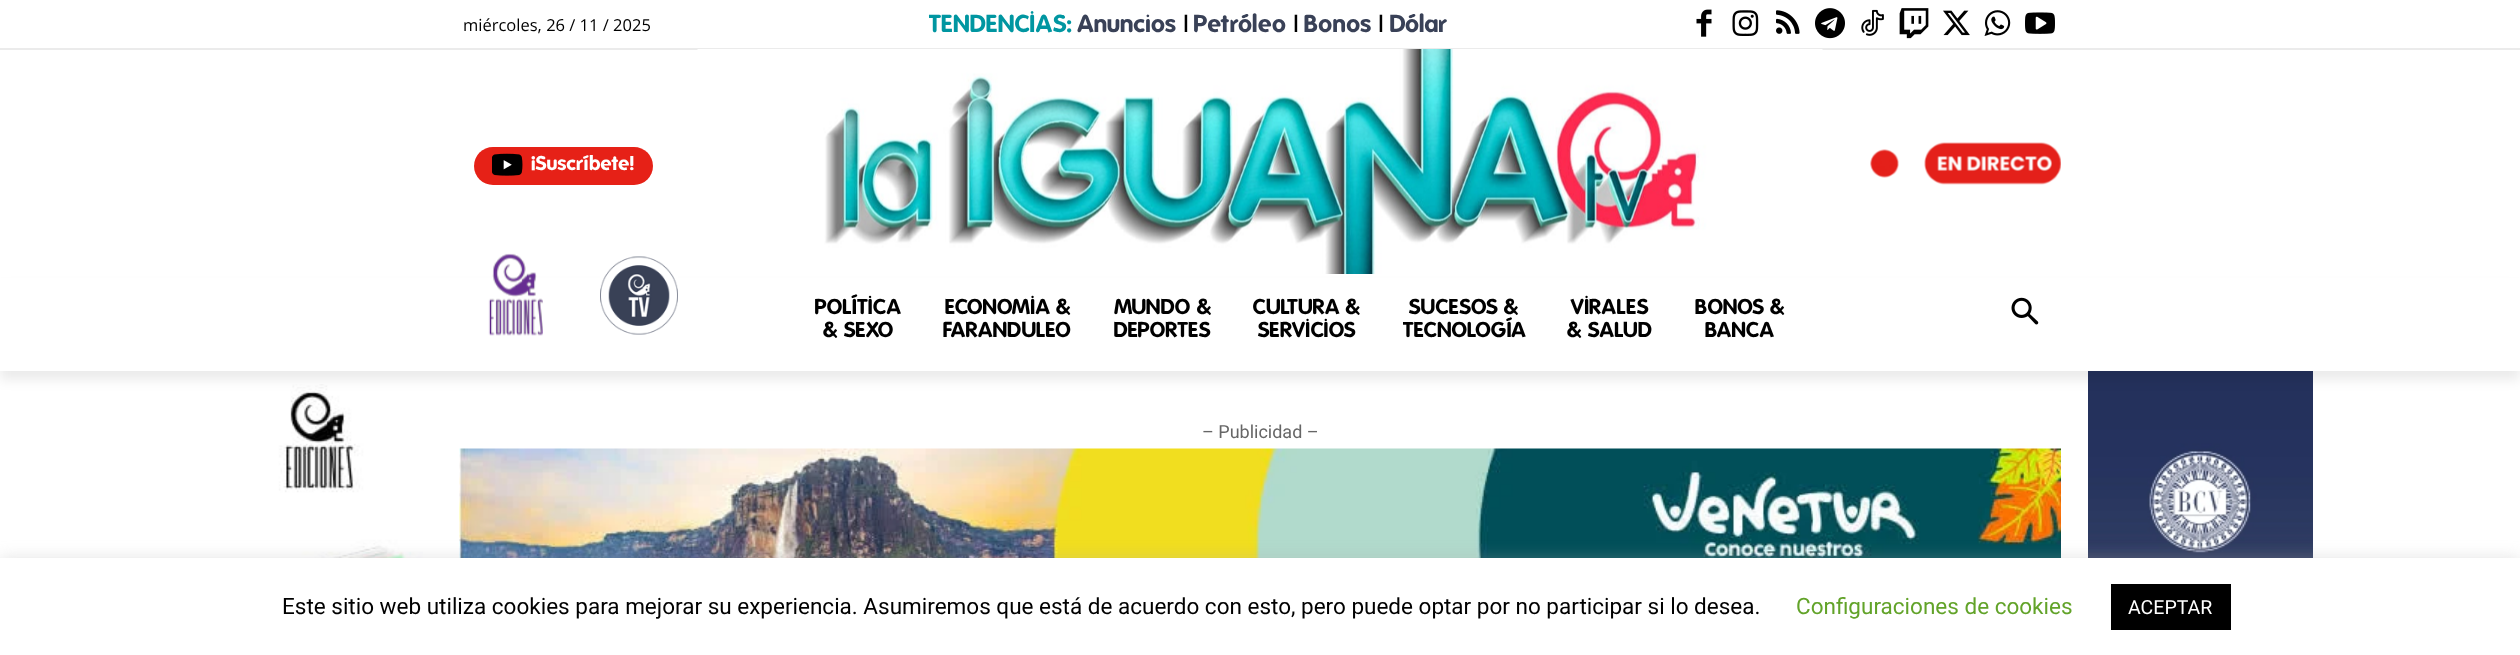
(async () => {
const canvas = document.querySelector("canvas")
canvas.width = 2520
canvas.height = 655
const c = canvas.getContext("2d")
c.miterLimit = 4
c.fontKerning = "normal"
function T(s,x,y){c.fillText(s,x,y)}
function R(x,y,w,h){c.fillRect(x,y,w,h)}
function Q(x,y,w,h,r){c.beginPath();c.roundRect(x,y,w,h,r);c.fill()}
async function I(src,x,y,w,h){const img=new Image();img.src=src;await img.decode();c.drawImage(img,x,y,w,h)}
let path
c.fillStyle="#fff"
R(0,0,2520,655)
c.font="16.5px Open Sans"
c.fillStyle="#000"
T("miércoles, 26 / 11 / 2025",463,31)
c.font="bold 24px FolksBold"
c.fillStyle="#0096a1"
T("TENDENCIAS:",929,32)
c.fillStyle="#394157"
T("Anuncios",1078,32)
c.fillStyle="#000"
T("|",1184,32)
c.fillStyle="#394157"
T("Petróleo",1194,32)
c.fillStyle="#000"
T("|",1294,32)
c.fillStyle="#394157"
T("Bonos",1304,32)
c.fillStyle="#000"
T("|",1379,32)
c.fillStyle="#394157"
T("Dólar",1390,32)
await I("1.png",1696,9,16,28)
await I("2.png",1732,10,27,26)
await I("3.png",1776,10,24,24)
await I("4.png",1815,8,30,31)
await I("5.png",1861,9,23,27)
await I("6.png",1899,8,30,31)
await I("7.png",1943,10,27,26)
await I("8.png",1984,10,27,26)
await I("9.png",2025,12,30,22)
c.fillStyle="#ebebeb"
R(0,48,2520,2)
c.fillStyle="#e62117"
Q(474,147,179,38,19)
await I("10.png",492,153,31,23)
c.font="bold 19.5px FolksBold"
c.fillStyle="#fff"
T("¡Suscríbete!",531,170)
await I("11.png",697,49,1126,225)
await I("12.png",1870,142,191,43)
await I("13.png",488,253,55,83)
await I("17.png",230,384,193,174)
await I("18.png",2088,371,225,187)
c.save()
path = new Path2D("M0 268h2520v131h-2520zm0 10h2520v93h-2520z")
c.clip(path,"evenodd")
c.fillStyle="#00000014"
c.filter="blur(6px)"
c.beginPath()
c.rect(0,287,2520,93)
c.fill()
c.filter="none"
c.restore()
await I("14.png",600,256,78,79)
c.font="bold 21px FolksBold"
c.fillStyle="#000"
T("POLÍTICA",815,314)
T("& SEXO",823,337)
T("ECONOMIA &",945,314)
T("FARANDULEO",943,337)
T("MUNDO &",1114,314)
T("DEPORTES",1114,337)
T("CULTURA &",1253,314)
T("SERVICIOS",1258,337)
T("SUCESOS &",1409,314)
T("TECNOLOGÍA",1403,337)
T("VIRALES",1571,314)
T("& SALUD",1567,337)
T("BONOS &",1695,314)
T("BANCA",1705,337)
await I("15.png",2011,297,28,28)
c.font="18px Roboto"
c.fillStyle="#666"
T("– Publicidad –",1202,438)
await I("16.png",459,448,1602,110)
c.fillStyle="#acabab4d"
c.filter="blur(7.5px)"
c.beginPath()
c.rect(0,557,2520,97)
c.fill()
c.filter="none"
c.fillStyle="#fff"
R(0,558,2520,97)
c.font="22.5px Roboto"
c.fillStyle="#000"
T("Este sitio web utiliza cookies para mejorar su experiencia. Asumiremos que está de acuerdo con esto, pero puede optar por no participar si lo desea.",282,614)
c.fillStyle="#62a329"
T("Configuraciones de cookies",1796,614)
c.fillStyle="#000"
R(2111,584,120,46)
c.font="19.5px Roboto"
c.fillStyle="#fff"
T("ACEPTAR",2128,614)
})()
